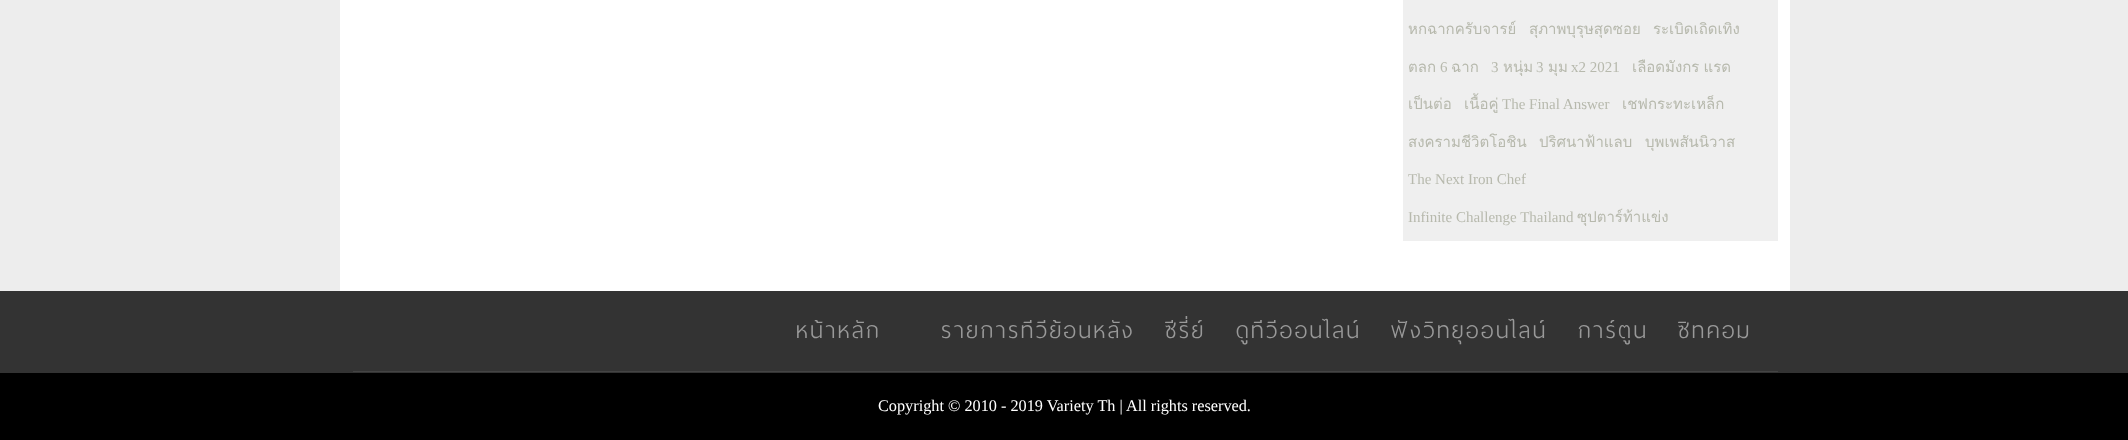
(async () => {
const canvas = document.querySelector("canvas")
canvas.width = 2128
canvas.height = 440
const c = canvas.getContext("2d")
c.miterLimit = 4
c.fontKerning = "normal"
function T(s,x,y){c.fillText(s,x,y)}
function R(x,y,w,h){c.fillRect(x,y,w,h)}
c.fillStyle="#ededed"
R(0,0,2128,440)
c.fillStyle="#fff"
R(340,0,1450,291)
c.fillStyle="#efefef"
R(1403,0,375,241)
c.font="15px Loma"
c.fillStyle="#b7b9ad"
T("หกฉากครับจารย์",1408,34)
T("สุภาพบุรุษสุดซอย",1529,34)
T("ระเบิดเถิดเทิง",1653,34)
T("ตลก",1408,72)
c.font="15px Liberation Serif"
T("6",1440,72)
c.font="15px Loma"
T("ฉาก",1451,72)
c.font="15px Liberation Serif"
T("3",1491,72)
c.font="15px Loma"
T("หนุ่ม",1503,72)
c.font="15px Liberation Serif"
T("3",1536,72)
c.font="15px Loma"
T("มุม",1548,72)
c.font="15px Liberation Serif"
T("x2 2021",1571,72)
c.wordSpacing="-1px"
c.font="15px Loma"
T("เลือดมังกร แรด",1632,72)
c.wordSpacing="0px"
T("เป็นต่อ",1408,109)
T("เนื้อคู่",1464,109)
c.font="15px Liberation Serif"
T("The Final Answer",1502,109)
c.font="15px Loma"
T("เชฟกระทะเหล็ก",1622,109)
T("สงครามชีวิตโอชิน",1408,147)
T("ปริศนาฟ้าแลบ",1539,147)
T("บุพเพสันนิวาส",1645,147)
c.font="15px Liberation Serif"
T("The Next Iron Chef",1408,184)
T("Infinite Challenge Thailand",1408,222)
c.font="15px Loma"
T("ซุปตาร์ท้าแข่ง",1577,222)
c.fillStyle="#333"
R(0,291,2128,82)
c.fillStyle="#444"
R(353,371,1425,1)
c.letterSpacing="2.5px"
c.font="300 30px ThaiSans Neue"
c.fillStyle="#999"
T("หน้าหลัก",796,338)
T("รายการทีวีย้อนหลัง",941,338)
T("ซีรี่ย์",1165,338)
T("ดูทีวีออนไลน์",1236,338)
T("ฟังวิทยุออนไลน์",1391,338)
T("การ์ตูน",1578,338)
T("ซิทคอม",1678,338)
c.fillStyle="#000"
R(0,373,2128,67)
c.letterSpacing="0px"
c.font="16.25px Liberation Serif"
c.fillStyle="#fff"
T("Copyright © 2010 - 2019 Variety Th | All rights reserved.",878,411)
})()
